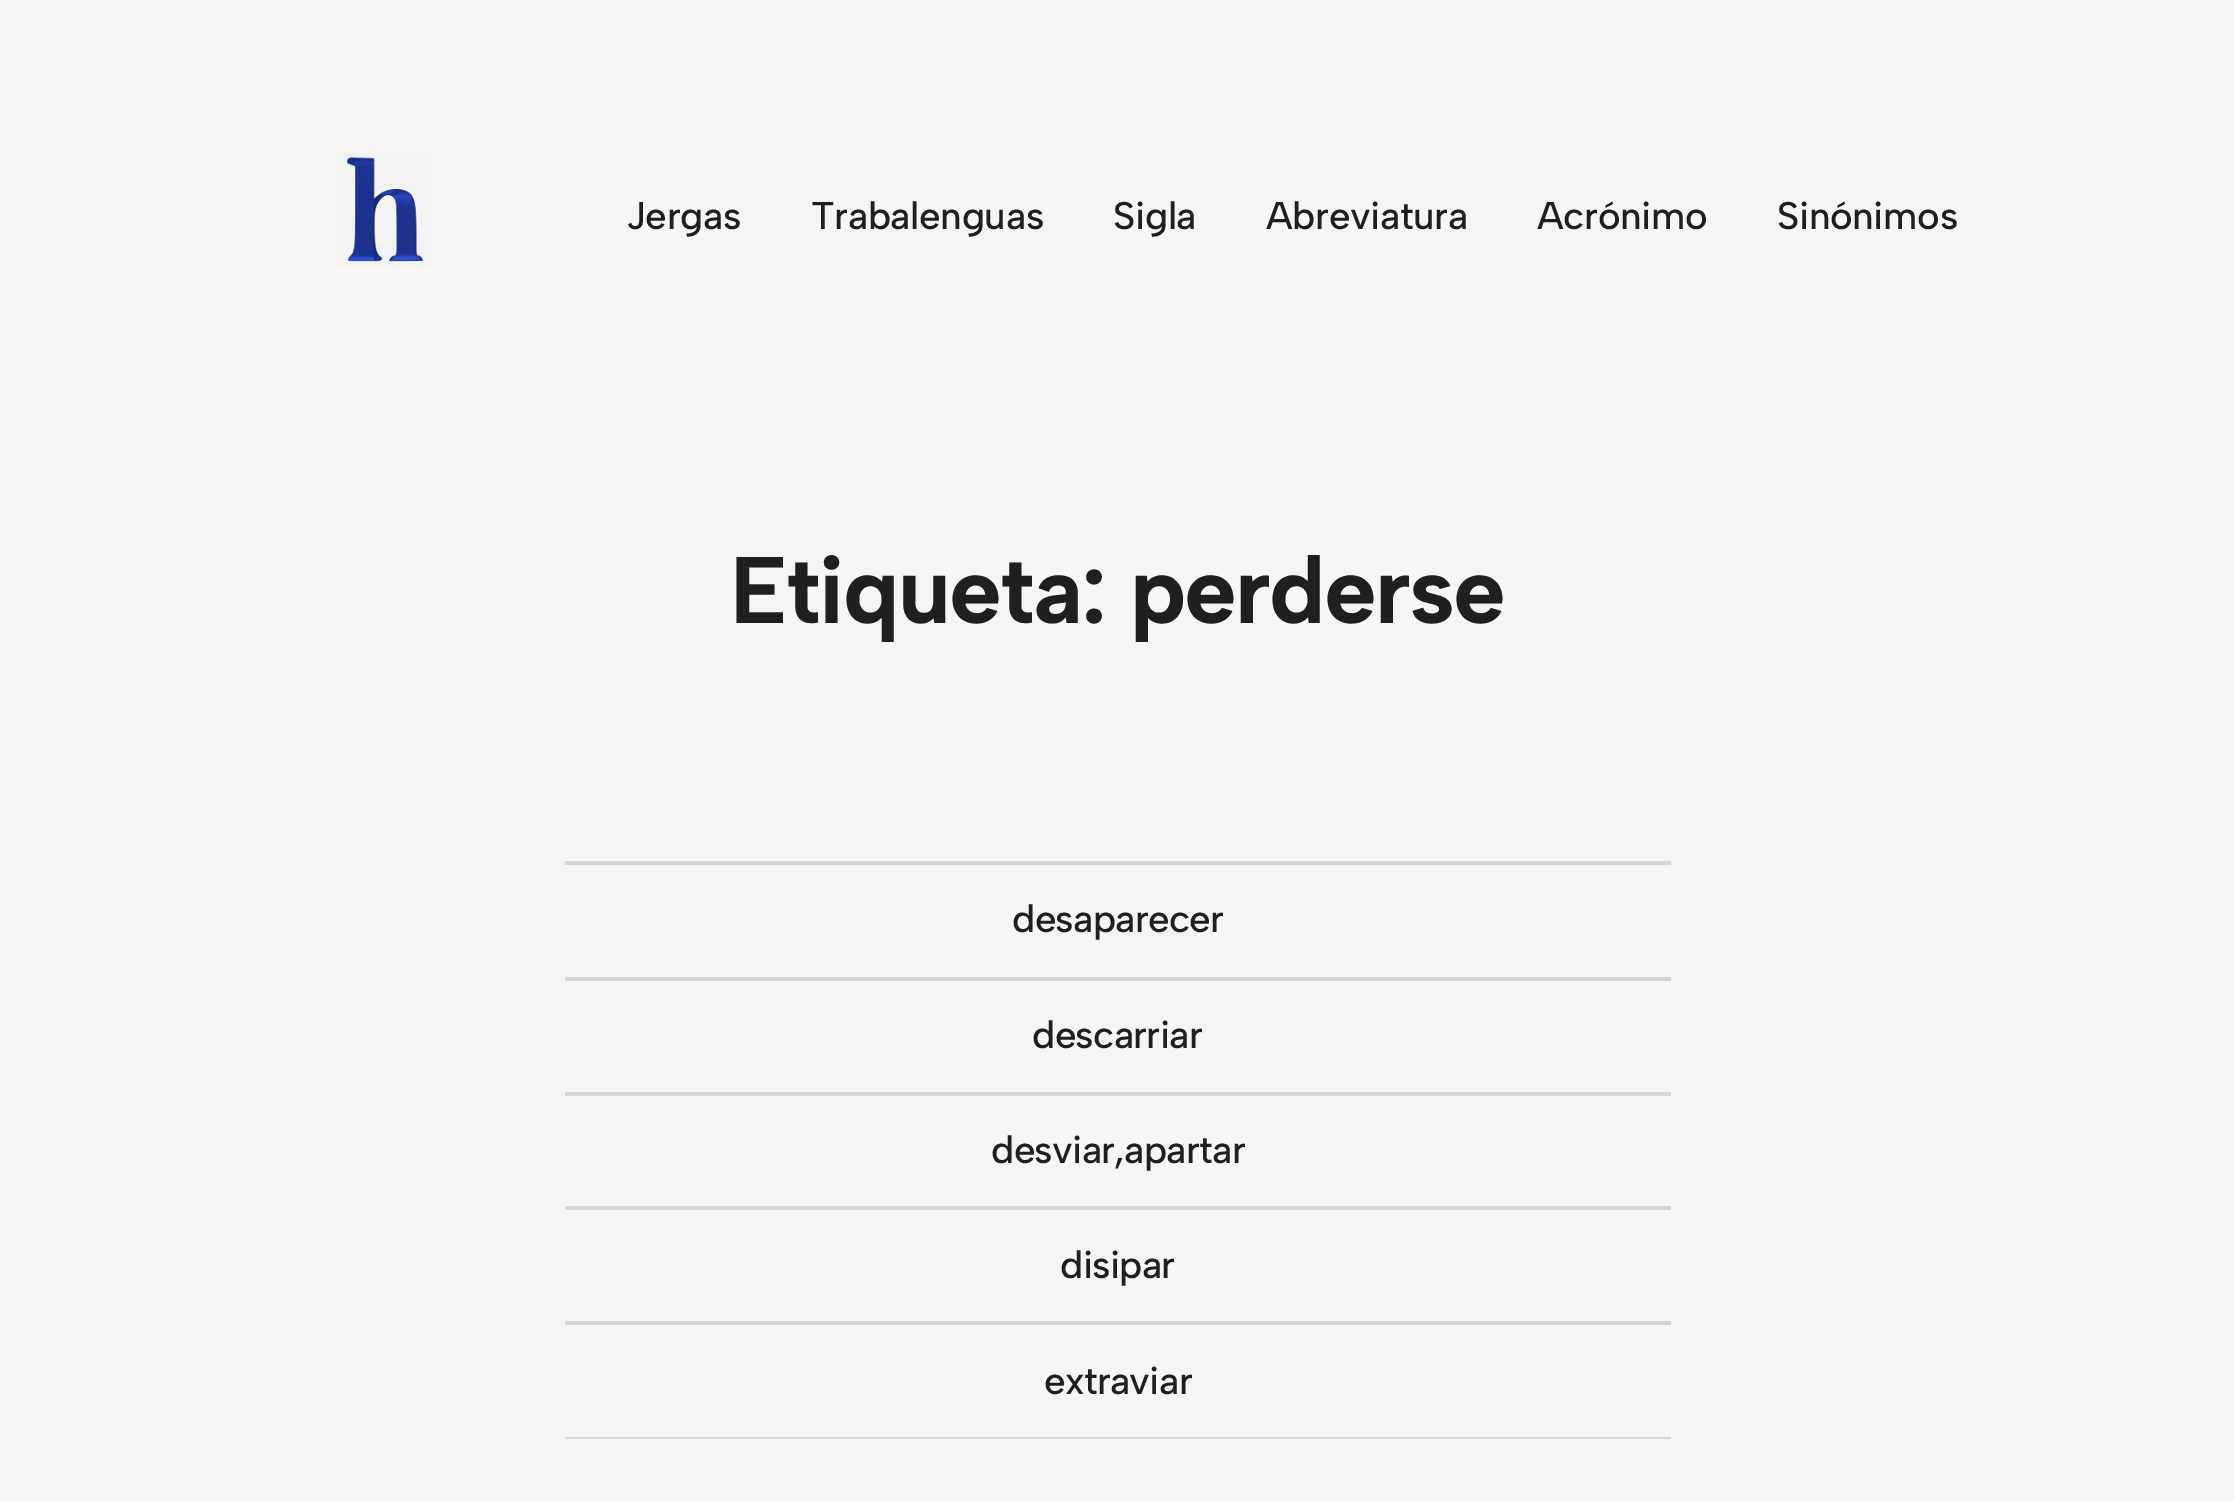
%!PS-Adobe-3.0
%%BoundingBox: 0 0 2234 1501
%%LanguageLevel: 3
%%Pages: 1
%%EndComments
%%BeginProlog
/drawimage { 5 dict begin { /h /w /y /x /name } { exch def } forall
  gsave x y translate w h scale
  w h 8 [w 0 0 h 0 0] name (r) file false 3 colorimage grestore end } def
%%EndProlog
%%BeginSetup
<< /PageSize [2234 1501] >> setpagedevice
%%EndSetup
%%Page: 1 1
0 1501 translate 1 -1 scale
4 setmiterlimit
0.969 0.961 0.953 setrgbcolor
0 0 2234 1501 rectfill
(images/1.raw) 334 153 99 114 drawimage
0.839 0.835 0.827 setrgbcolor
565 1437 1106 2 rectfill
565 861 1106 4 rectfill
565 977 1106 4 rectfill
565 1092 1106 4 rectfill
565 1206 1106 4 rectfill
565 1321 1106 4 rectfill
/AlbertSans-Medium [38.5 0 0 -38.5 0 0] selectfont
0.114 0.125 0.122 setrgbcolor
626 229 moveto -0.4 0 (Jergas) ashow
811 229 moveto -0.4 0 (Trabalenguas) ashow
1113 229 moveto -0.4 0 (Sigla) ashow
1266 229 moveto -0.4 0 (Abreviatura) ashow
1537 229 moveto -0.4 0 (Acrónimo) ashow
1777 229 moveto -0.4 0 (Sinónimos) ashow
/AlbertSans-Bold [94.5 0 0 -94.5 0 0] selectfont
730 623 moveto -1.9 0 (Etiqueta: perderse) ashow
/AlbertSans-Medium [38.5 0 0 -38.5 0 0] selectfont
1012 932 moveto -0.75 0 (desaparecer) ashow
1032 1048 moveto -0.75 0 (descarriar) ashow
991 1163 moveto -0.75 0 (desviar,apartar) ashow
1060 1278 moveto -0.75 0 (disipar) ashow
1044 1394 moveto -0.75 0 (extraviar) ashow
showpage
%%EOF
